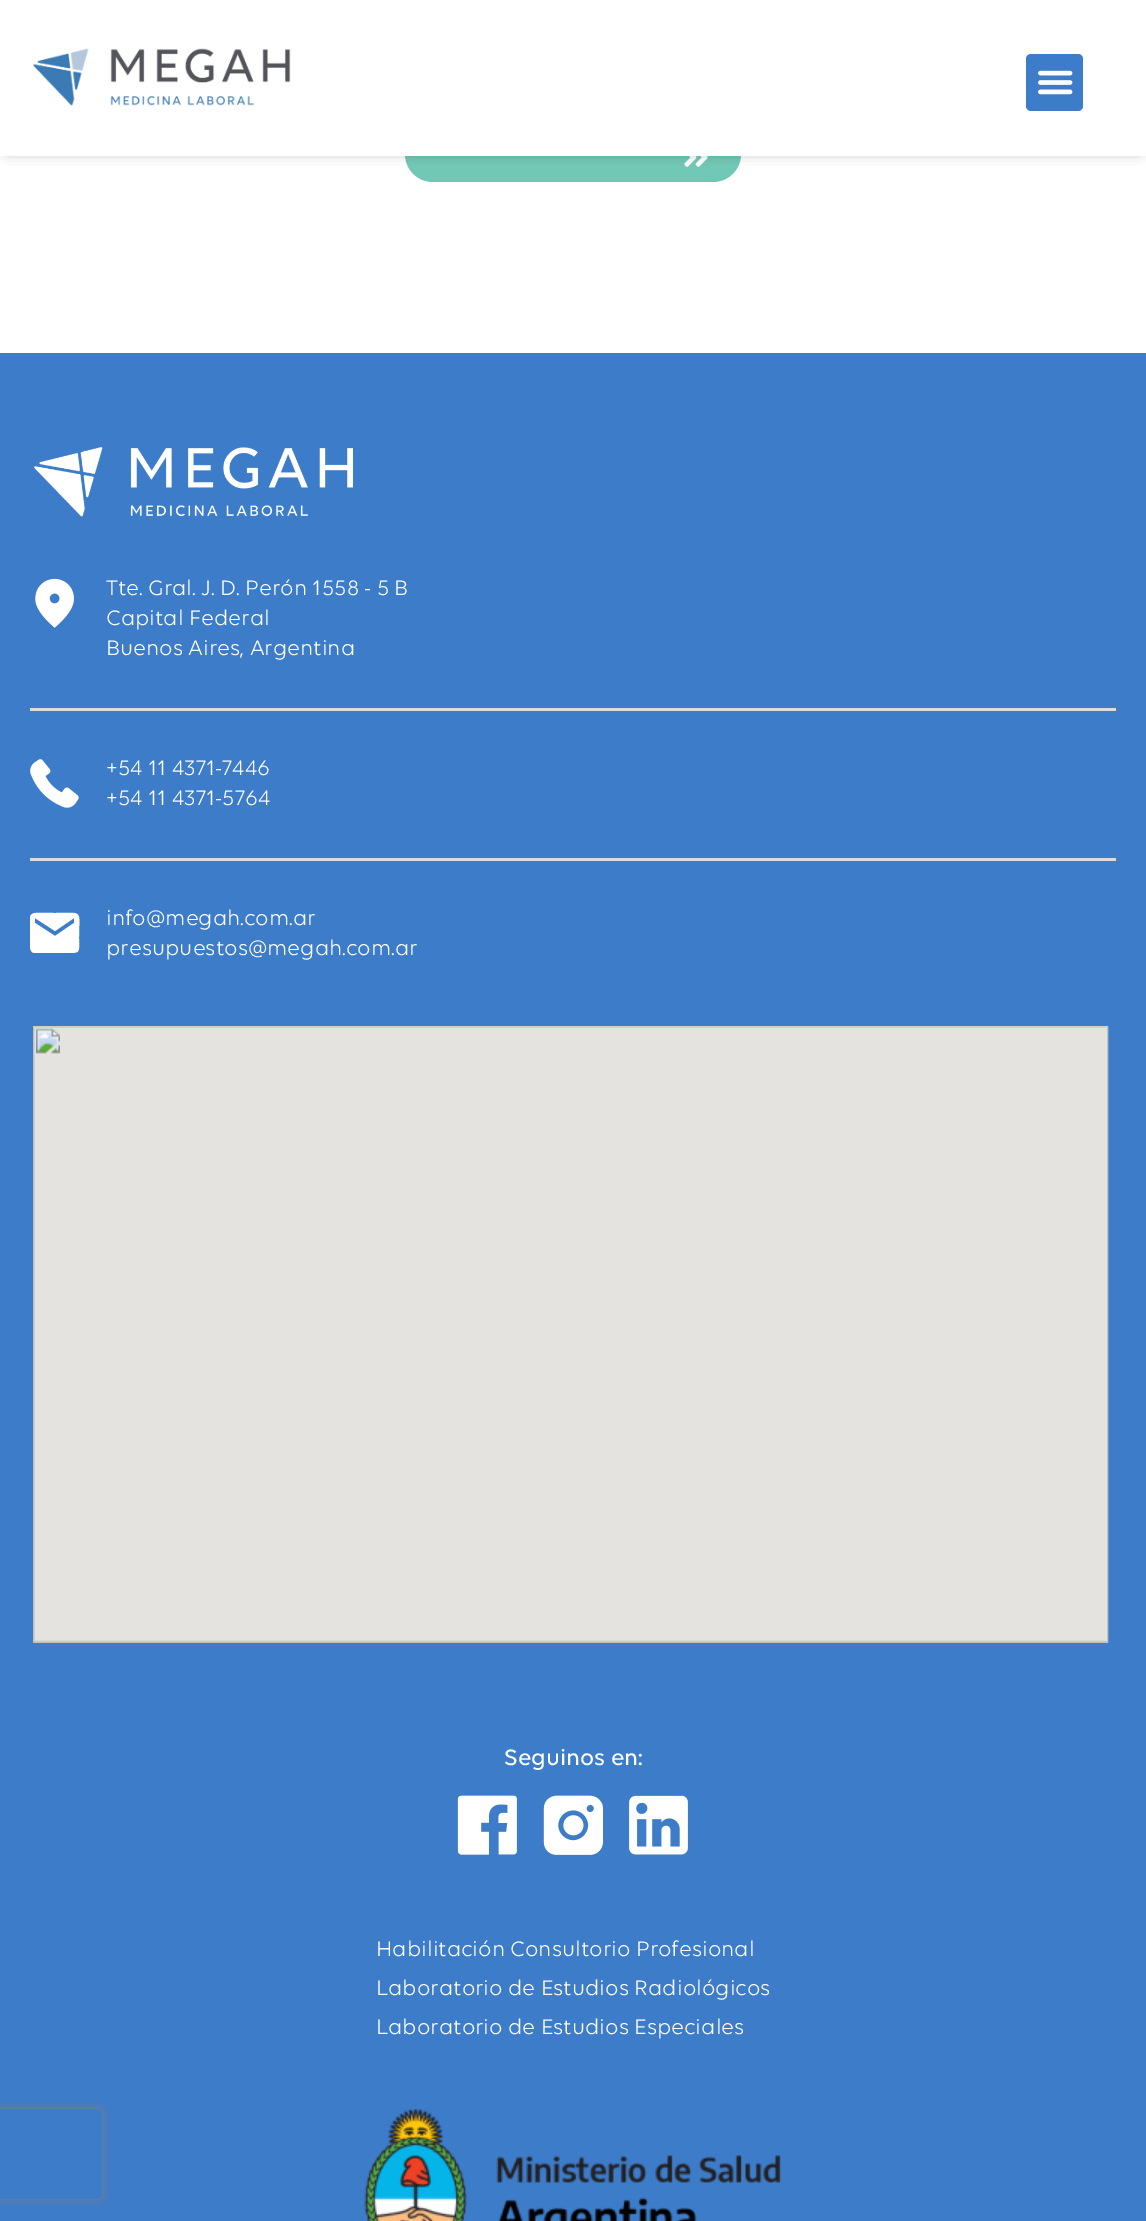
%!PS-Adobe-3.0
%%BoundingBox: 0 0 1146 2221
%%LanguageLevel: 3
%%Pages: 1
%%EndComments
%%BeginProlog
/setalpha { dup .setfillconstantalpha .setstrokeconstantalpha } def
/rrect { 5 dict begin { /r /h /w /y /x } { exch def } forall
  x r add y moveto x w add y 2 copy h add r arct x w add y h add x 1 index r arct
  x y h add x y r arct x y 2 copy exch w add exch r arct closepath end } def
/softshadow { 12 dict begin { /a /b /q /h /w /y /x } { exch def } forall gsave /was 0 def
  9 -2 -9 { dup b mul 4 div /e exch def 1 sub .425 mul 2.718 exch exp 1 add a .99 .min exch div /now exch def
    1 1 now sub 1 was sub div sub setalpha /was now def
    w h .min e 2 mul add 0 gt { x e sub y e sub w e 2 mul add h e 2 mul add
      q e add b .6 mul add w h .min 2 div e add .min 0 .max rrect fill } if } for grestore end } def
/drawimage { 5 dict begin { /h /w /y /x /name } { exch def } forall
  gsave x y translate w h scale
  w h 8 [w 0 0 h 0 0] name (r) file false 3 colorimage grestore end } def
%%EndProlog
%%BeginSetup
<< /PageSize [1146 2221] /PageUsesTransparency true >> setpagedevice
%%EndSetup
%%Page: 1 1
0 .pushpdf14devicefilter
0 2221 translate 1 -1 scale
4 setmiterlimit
1 setgray
0 0 1146 2221 rectfill
0.447 0.784 0.714 setrgbcolor
405 126 336 56 28 rrect fill
(images/3.raw) 684 156 24 11 drawimage
0 setgray
8 8 1131 141 0 7.5 0.5 softshadow
1 setgray
0 0 1146 156 rectfill
(images/1.raw) 33 48 258 58 drawimage
0.239 0.486 0.788 setrgbcolor
1026 54 57 57 5 rrect fill
(images/2.raw) 1038 70 35 25 drawimage
0 353 1146 1868 rectfill
(images/4.raw) 34 447 319 70 drawimage
(images/5.raw) 35 578 39 50 drawimage
0.867 setgray
30 708 1086 3 rectfill
(images/6.raw) 30 759 49 49 drawimage
30 858 1086 3 rectfill
gsave
30 908 51 51 rectclip
1 setgray
newpath 35 953 moveto 28 953 30 942 30 938 curveto 30 909 25 913 55 913 curveto 84 913 79 909 79 938 curveto 79 952 81 953 68 953 curveto closepath 55 936 moveto 74 923 lineto 74 918 lineto 55 931 lineto 35 918 lineto 35 923 lineto closepath fill
grestore
(images/7.raw) 33 1026 1076 617 drawimage
(images/8.raw) 457 1795 60 60 drawimage
(images/9.raw) 543 1795 61 60 drawimage
(images/10.raw) 629 1795 59 60 drawimage
(images/11.raw) 364 2109 417 112 drawimage
gsave
newpath 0 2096 moveto 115 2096 lineto 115 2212 lineto 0 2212 lineto closepath 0 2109 moveto 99 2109 lineto 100.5 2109 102 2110.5 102 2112 curveto 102 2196 lineto 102 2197.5 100.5 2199 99 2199 curveto 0 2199 lineto -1.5 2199 -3 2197.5 -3 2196 curveto -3 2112 lineto -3 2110.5 -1.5 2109 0 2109 curveto closepath eoclip newpath
0.502 setgray
-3 2109 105 90 3 4 1 softshadow
grestore
/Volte-Regular [22.5 0 0 -22.5 0 0] selectfont
1 setgray
106 595 moveto (Tte. Gral. J. D. Perón 1558 - 5 B) show
106 625 moveto (Capital Federal) show
106 655 moveto (Buenos Aires, Argentina) show
106 775 moveto (+54 11 4371-7446) show
106 805 moveto (+54 11 4371-5764) show
106 925 moveto (info@megah.com.ar) show
106 955 moveto (presupuestos@megah.com.ar) show
/Volte-Medium [24 0 0 -24 0 0] selectfont
504 1765 moveto (Seguinos en:) show
/Volte-Regular [22.5 0 0 -22.5 0 0] selectfont
376 1956 moveto (Habilitación Consultorio Profesional) show
376 1995 moveto (Laboratorio de Estudios Radiológicos) show
376 2034 moveto (Laboratorio de Estudios Especiales) show
.poppdf14devicefilter showpage
%%EOF
